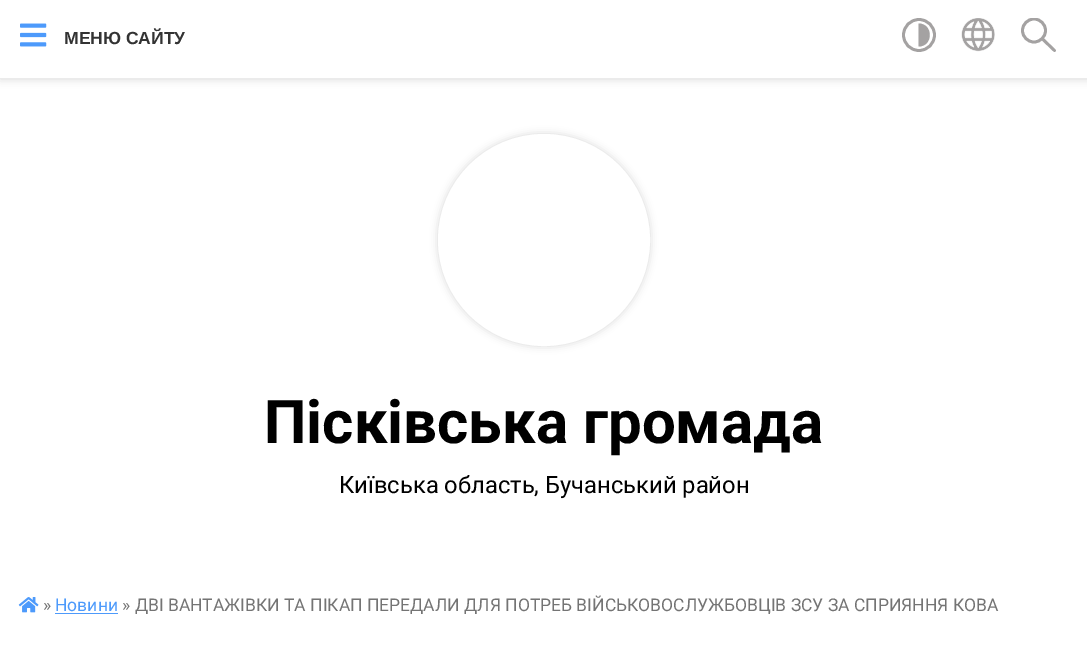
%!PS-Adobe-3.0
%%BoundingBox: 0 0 1087 651
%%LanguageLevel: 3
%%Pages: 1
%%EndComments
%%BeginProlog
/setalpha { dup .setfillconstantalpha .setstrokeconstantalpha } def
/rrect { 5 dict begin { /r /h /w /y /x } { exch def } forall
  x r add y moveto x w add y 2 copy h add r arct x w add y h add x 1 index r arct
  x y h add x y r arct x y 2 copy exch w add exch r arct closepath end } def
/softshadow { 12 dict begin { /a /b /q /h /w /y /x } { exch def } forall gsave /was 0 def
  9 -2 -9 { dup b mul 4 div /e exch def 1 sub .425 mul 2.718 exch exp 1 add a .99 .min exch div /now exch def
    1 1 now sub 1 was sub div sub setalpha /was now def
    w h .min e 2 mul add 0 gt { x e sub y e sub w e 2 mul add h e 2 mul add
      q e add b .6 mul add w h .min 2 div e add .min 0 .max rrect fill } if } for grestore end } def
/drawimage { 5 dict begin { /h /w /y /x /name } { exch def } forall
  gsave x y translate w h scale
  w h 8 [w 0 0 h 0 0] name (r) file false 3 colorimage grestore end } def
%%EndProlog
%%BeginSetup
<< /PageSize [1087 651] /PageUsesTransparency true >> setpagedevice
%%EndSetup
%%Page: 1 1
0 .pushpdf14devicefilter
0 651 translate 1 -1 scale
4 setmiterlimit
1 setgray
0 0 1087 651 rectfill
0 setgray
0 1 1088 78 0 4.5 0.15 softshadow
1 setgray
0 0 1087 78 rectfill
(images/1.raw) 20 23 27 24 drawimage
0.643 0.635 0.635 setrgbcolor
2.8 setlinewidth
newpath 919 35 15.5 0 360 arc closepath stroke
newpath 918.5 23.5 moveto 933.5 23.5 933.5 46.5 918.5 46.5 curveto closepath eofill
(images/2.raw) 961 18 34 34 drawimage
gsave
1021 18 35 35 rectclip
newpath 1034 30.5 11.5 0 360 arc closepath stroke
grestore
1 setlinecap
1 setlinejoin
newpath 1042.5 39 moveto 1054.5 50.5 lineto stroke
0 setgray
438 134 212 212 106 4 0.15 softshadow
1 setgray
newpath 544 240 104.5 0 360 arc closepath gsave fill grestore
3 setlinewidth
0 setlinecap
0 setlinejoin
stroke
(images/3.raw) 18 597 21 16 drawimage
0.302 0.604 0.984 setrgbcolor
55 613 63 1 rectfill
/LiberationSans-Bold [17.5 0 0 -17.5 0 0] selectfont
0.2 setgray
64 44 moveto (МЕНЮ САЙТУ) show
/Roboto-Bold [60 0 0 -60 0 0] selectfont
0 setgray
264 443 moveto (Пісківська громада) show
/Roboto-Regular [23.75 0 0 -23.75 0 0] selectfont
339 493 moveto (Київська область, Бучанський район) show
/Roboto-Regular [17.5 0 0 -17.5 0 0] selectfont
0.455 setgray
43 611 moveto (») show
0.302 0.604 0.984 setrgbcolor
55 611 moveto (Новини) show
0.455 setgray
122 611 moveto (» ДВІ ВАНТАЖІВКИ ТА ПІКАП ПЕРЕДАЛИ ДЛЯ ПОТРЕБ ВІЙСЬКОВОСЛУЖБОВЦІВ ЗСУ ЗА СПРИЯННЯ КОВА) show
.poppdf14devicefilter showpage
%%EOF
